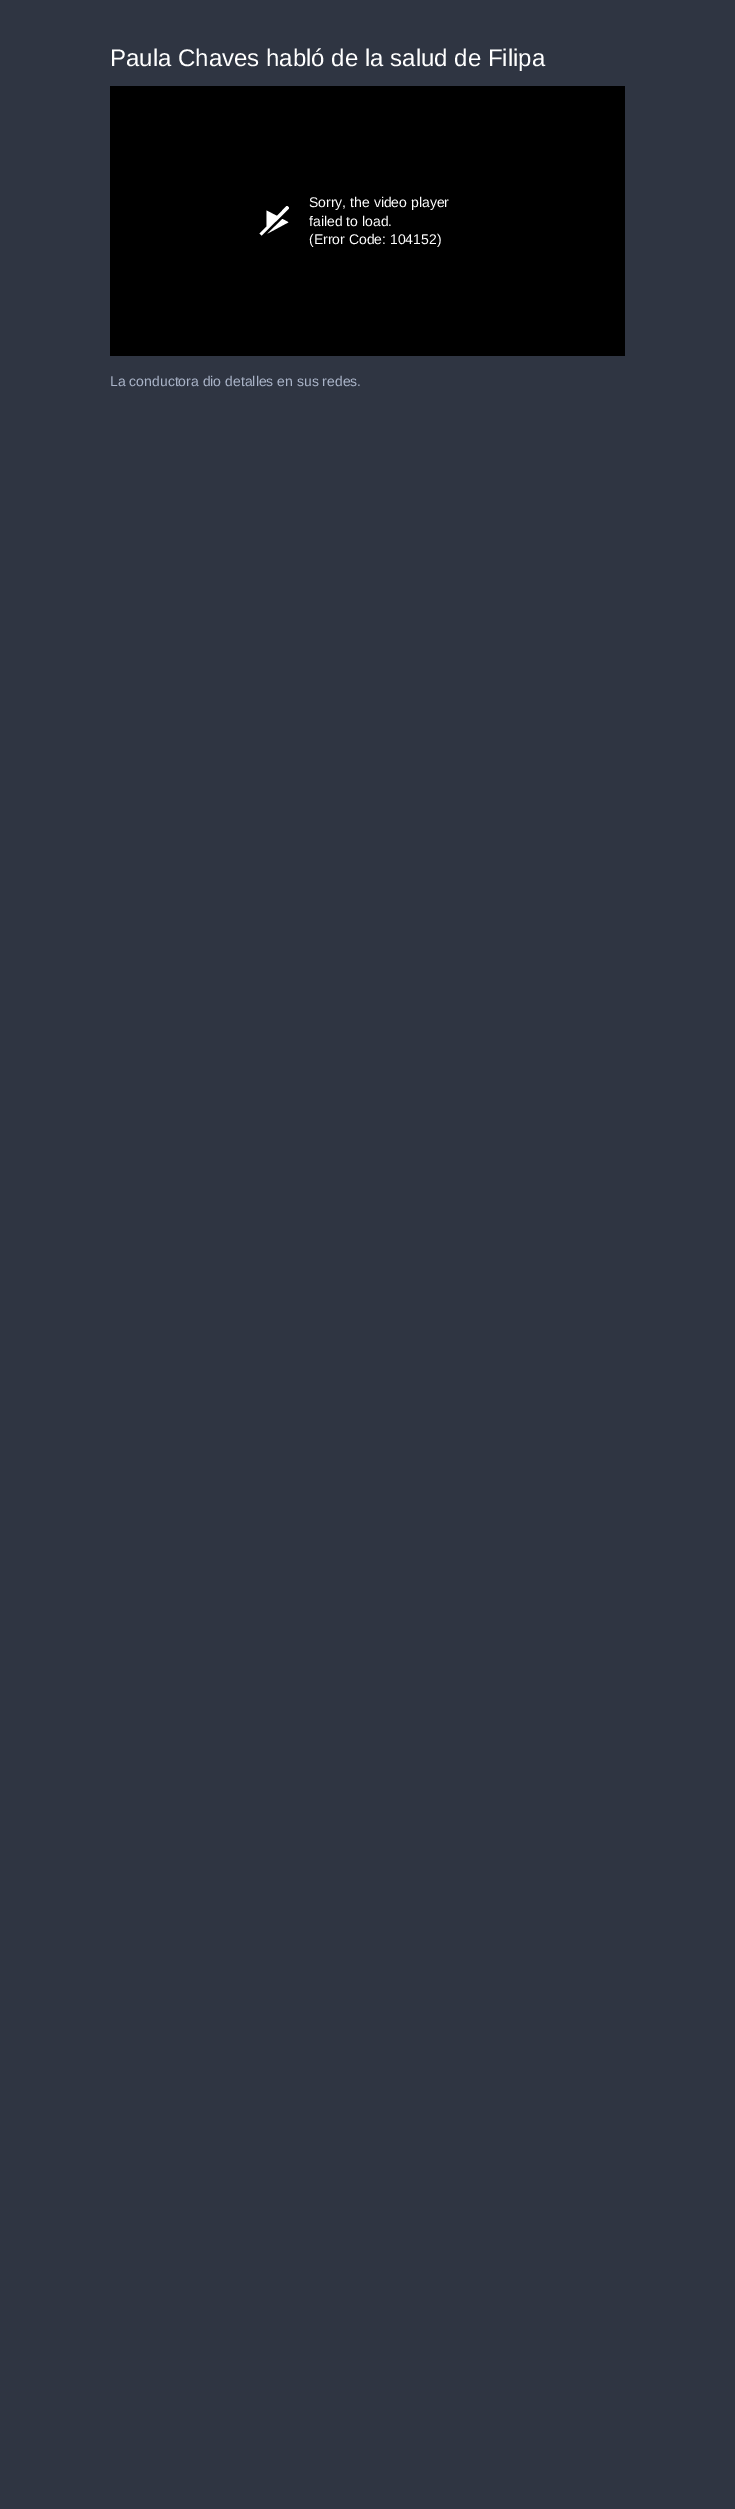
%!PS-Adobe-3.0
%%BoundingBox: 0 0 735 2509
%%LanguageLevel: 3
%%Pages: 1
%%EndComments
%%BeginProlog
%%EndProlog
%%BeginSetup
<< /PageSize [735 2509] >> setpagedevice
%%EndSetup
%%Page: 1 1
0 2509 translate 1 -1 scale
4 setmiterlimit
0.184 0.208 0.259 setrgbcolor
0 0 735 2509 rectfill
0 setgray
110 86 515 270 rectfill
gsave
259 206 30 30 rectclip
1 setgray
newpath 288 222.5 moveto 267.5 233.5 lineto 282.5 219 lineto 288 222 289 222.5 288 222.5 curveto closepath 287 205.5 moveto 277 216 lineto 266.5 210.5 lineto 266.5 226.5 lineto 259.5 233.5 lineto 261.5 235.5 lineto 289.5 208 lineto closepath fill
grestore
/LiberationSans-Regular [24 0 0 -24 0 0] selectfont
1 setgray
110 66 moveto (Paula Chaves habló de la salud de Filipa) show
/LiberationSans-Regular [14 0 0 -14 0 0] selectfont
309 207 moveto (Sorry, the video player) show
309 226 moveto (failed to load.) show
309 244 moveto (\(Error Code: 104152\)) show
0.667 0.706 0.784 setrgbcolor
110 386 moveto (La conductora dio detalles en sus redes.) show
showpage
%%EOF
